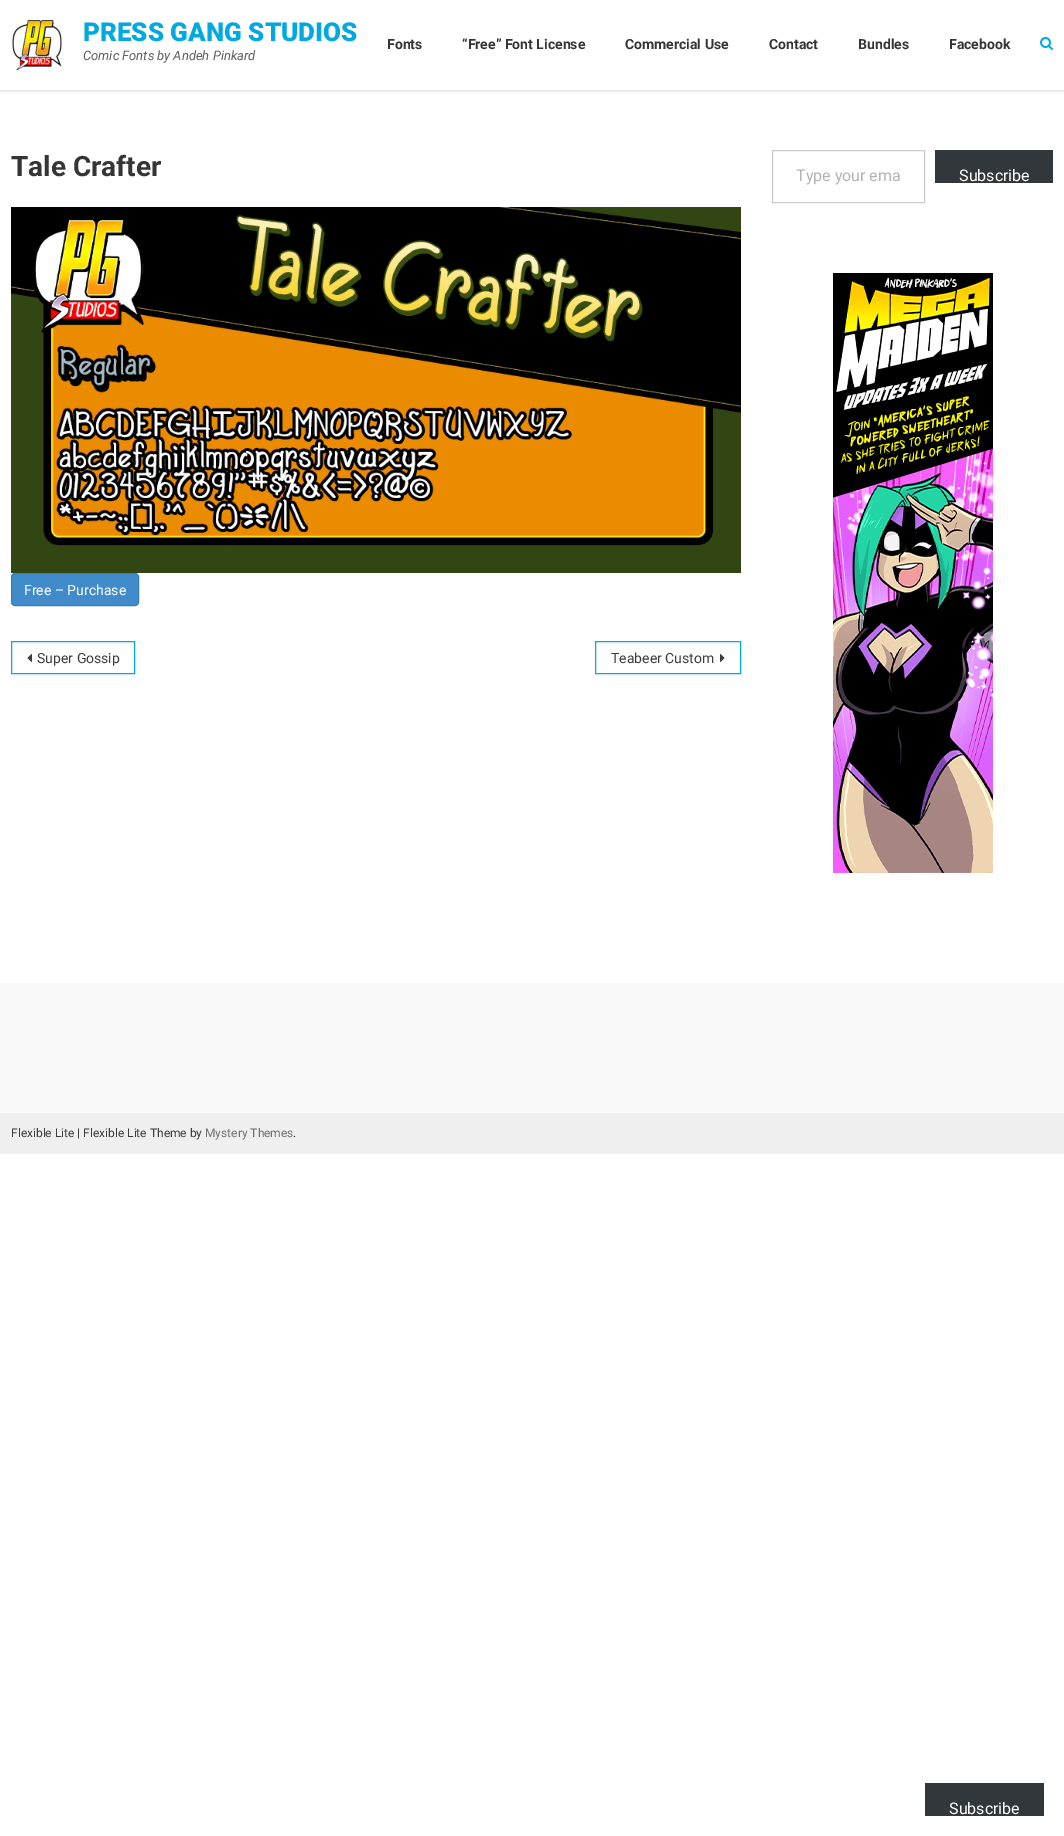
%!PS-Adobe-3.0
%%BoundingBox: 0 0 1064 1836
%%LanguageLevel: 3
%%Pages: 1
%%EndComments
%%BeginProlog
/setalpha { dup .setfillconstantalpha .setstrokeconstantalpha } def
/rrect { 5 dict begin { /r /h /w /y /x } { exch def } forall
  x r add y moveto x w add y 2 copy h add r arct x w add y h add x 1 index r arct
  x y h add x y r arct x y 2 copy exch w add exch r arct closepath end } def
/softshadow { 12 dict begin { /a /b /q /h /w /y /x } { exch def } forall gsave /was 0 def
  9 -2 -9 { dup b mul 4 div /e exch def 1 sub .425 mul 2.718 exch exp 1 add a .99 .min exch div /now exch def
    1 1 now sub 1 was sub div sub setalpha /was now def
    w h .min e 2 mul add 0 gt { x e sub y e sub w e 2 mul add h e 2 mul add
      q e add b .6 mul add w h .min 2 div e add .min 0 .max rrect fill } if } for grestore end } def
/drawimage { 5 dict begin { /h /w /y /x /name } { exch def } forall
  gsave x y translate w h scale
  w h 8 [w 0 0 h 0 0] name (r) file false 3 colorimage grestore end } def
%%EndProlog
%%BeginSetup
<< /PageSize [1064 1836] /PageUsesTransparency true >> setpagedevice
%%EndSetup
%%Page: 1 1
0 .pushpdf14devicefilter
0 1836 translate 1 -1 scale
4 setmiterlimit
1 setgray
0 0 1064 1836 rectfill
gsave
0 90 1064 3 rectclip
0 setgray
0 0 1064 90 0 2.5 0.2 softshadow
grestore
(images/1.raw) 12 20 50 50 drawimage
(images/2.raw) 1040 37 13 13 drawimage
(images/3.raw) 11 207 730 366 drawimage
0.259 0.545 0.792 setrgbcolor
11.5 573.5 127 32 3.5 rrect gsave fill grestore
0.208 0.494 0.741 setrgbcolor
stroke
0 0.663 0.878 setrgbcolor
11.5 641.5 123 32 rectstroke
(images/4.raw) 27 654 5 8 drawimage
595.5 641.5 145 32 rectstroke
(images/5.raw) 720 654 5 8 drawimage
0.8 setgray
772.5 150.5 152 52 rectstroke
0.196 0.216 0.235 setrgbcolor
935 150 118 33 rectfill
(images/6.raw) 833 273 160 600 drawimage
0.976 setgray
0 983 1064 130 rectfill
0.937 setgray
0 1113 1064 41 rectfill
0.196 0.216 0.235 setrgbcolor
925 1783 119 33 rectfill
/Roboto-Black [26 0 0 -26 0 0] selectfont
0 0.663 0.878 setrgbcolor
83 41 moveto (PRESS GANG STUDIOS) show
/Roboto-Italic [13 0 0 -13 0 0] selectfont
0.361 0.369 0.373 setrgbcolor
83 60 moveto (Comic Fonts by Andeh Pinkard) show
/Roboto-Bold [14 0 0 -14 0 0] selectfont
0.208 setgray
387 49 moveto (Fonts) show
462 49 moveto (“Free” Font License) show
625 49 moveto (Commercial Use) show
769 49 moveto (Contact) show
858 49 moveto (Bundles) show
949 49 moveto (Facebook) show
/Roboto-Bold [28 0 0 -28 0 0] selectfont
11 176 moveto (Tale Crafter) show
/Roboto-Regular [14 0 0 -14 0 0] selectfont
1 setgray
24 595 moveto (Free – Purchase) show
0.239 setgray
37 663 moveto (Super Gossip) show
611 663 moveto (Teabeer Custom) show
/Roboto-Regular [16 0 0 -16 0 0] selectfont
0.702 setgray
796 181 moveto (Type your ema) show
1 setgray
959 181 moveto (Subscribe) show
/Roboto-Regular [12 0 0 -12 0 0] selectfont
0.239 setgray
11 1137 moveto (Flexible Lite | Flexible Lite Theme by) show
0.439 setgray
205 1137 moveto (Mystery Themes) show
0.239 setgray
293 1137 moveto (.) show
/Roboto-Regular [16 0 0 -16 0 0] selectfont
1 setgray
949 1814 moveto (Subscribe) show
.poppdf14devicefilter showpage
%%EOF
